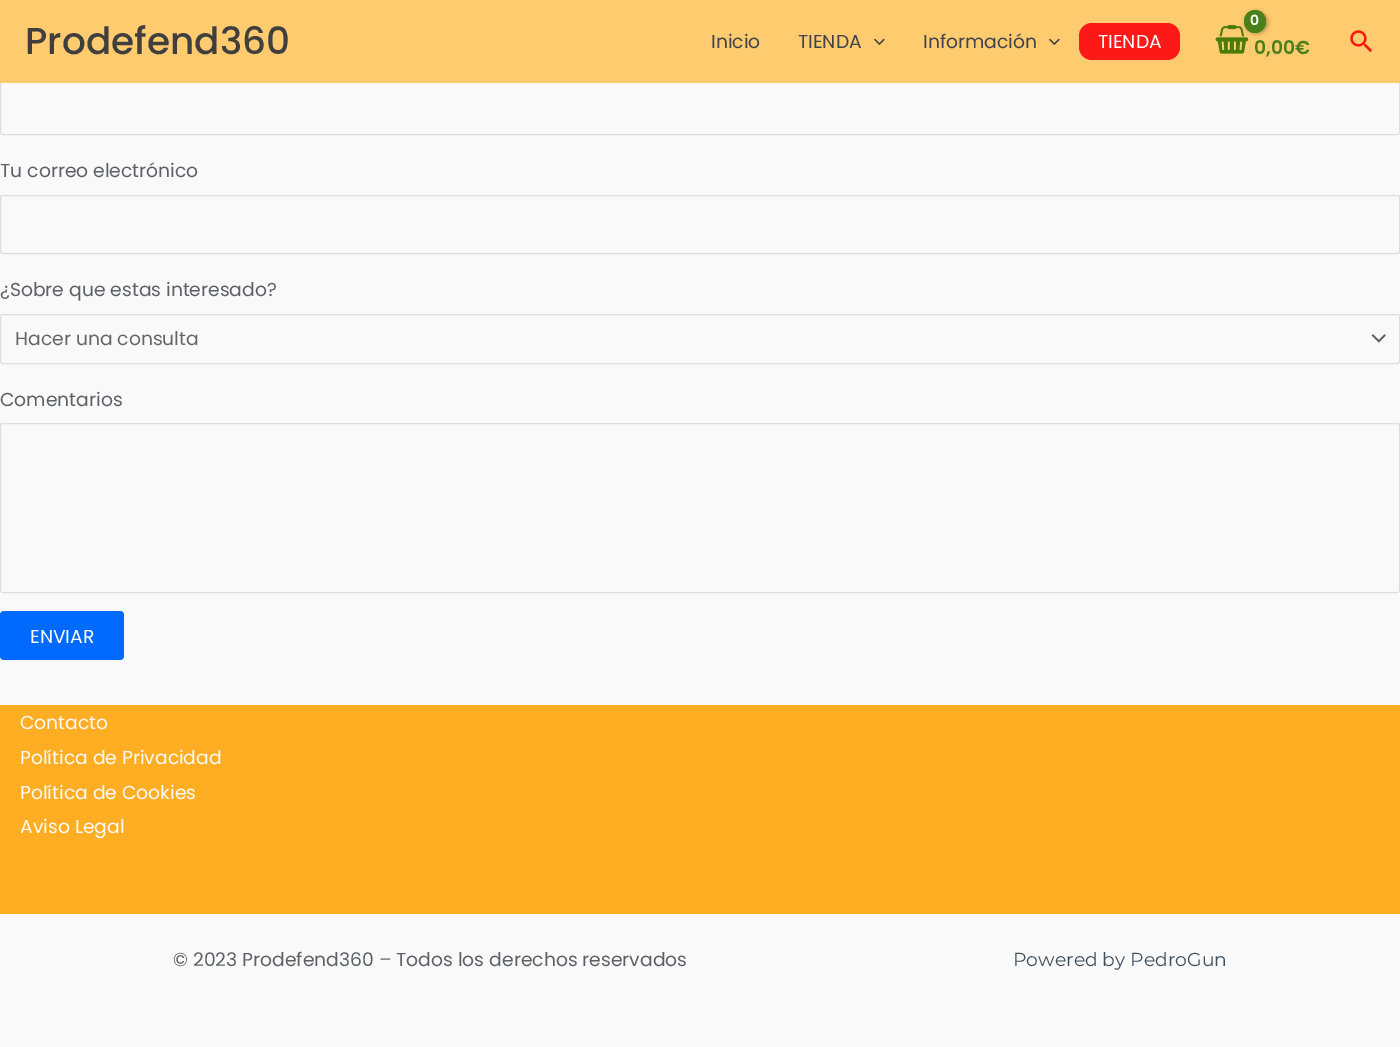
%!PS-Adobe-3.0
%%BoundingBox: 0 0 1400 1047
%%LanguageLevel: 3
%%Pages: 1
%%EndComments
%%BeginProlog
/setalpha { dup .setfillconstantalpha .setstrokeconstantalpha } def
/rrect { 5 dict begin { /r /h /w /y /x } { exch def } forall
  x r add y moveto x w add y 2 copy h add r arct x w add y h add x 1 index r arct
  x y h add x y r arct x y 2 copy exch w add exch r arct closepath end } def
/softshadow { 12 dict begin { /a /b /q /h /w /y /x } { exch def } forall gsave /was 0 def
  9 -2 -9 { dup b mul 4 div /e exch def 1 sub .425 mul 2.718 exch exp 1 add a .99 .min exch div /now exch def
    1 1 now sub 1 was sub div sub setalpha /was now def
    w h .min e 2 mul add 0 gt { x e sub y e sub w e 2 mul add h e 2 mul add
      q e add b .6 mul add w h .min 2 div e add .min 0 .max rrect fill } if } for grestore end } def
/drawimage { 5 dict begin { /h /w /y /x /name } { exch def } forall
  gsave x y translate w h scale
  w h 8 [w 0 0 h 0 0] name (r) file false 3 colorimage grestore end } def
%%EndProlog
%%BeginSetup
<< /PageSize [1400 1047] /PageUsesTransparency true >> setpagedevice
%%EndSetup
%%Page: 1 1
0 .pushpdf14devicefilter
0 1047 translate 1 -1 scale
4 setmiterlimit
0.976 setgray
0 0 1400 1047 rectfill
0.867 setgray
0.5 75.5 1399 59 2 rrect stroke
0.9 setalpha
1 setgray
0 0 1400 83 rectfill
1 0.773 0.376 setrgbcolor
0 0 1400 83 rectfill
1 setalpha
(images/1.raw) 874 38 11 7 drawimage
(images/1.raw) 1049 38 11 7 drawimage
0.996 0.098 0.098 setrgbcolor
1079 23 101 37 13 rrect fill
(images/2.raw) 1215 25 34 29 drawimage
0.098 setgray
1245 11 23 23 11.5 2 0.3 softshadow
0.29 0.502 0.098 setrgbcolor
1244 10 22 23 11 rrect fill
(images/3.raw) 1350 30 23 23 drawimage
0.867 setgray
0.5 195.5 1399 58 2 rrect stroke
(images/4.raw) 1371 334 15 9 drawimage
0.5 314.5 1399 49 2 rrect stroke
0.5 423.5 1399 169 2 rrect stroke
0 0.416 0.996 setrgbcolor
0 611 124 49 4 rrect fill
1 0.682 0.137 setrgbcolor
0 705 1400 209 rectfill
/Poppins-Medium [37.5 0 0 -37.5 0 0] selectfont
0.251 0.247 0.243 setrgbcolor
25 54 moveto (Prodefend360) show
/Poppins-Regular [18.75 0 0 -18.75 0 0] selectfont
0.251 0.263 0.294 setrgbcolor
711 48 moveto (Inicio) show
798 48 moveto (TIENDA) show
923 48 moveto (Información) show
1 setgray
1098 48 moveto (TIENDA) show
/Poppins-SemiBold [14 0 0 -14 0 0] selectfont
1250 25 moveto -1 0 (0) ashow
/Poppins-SemiBold [18.75 0 0 -18.75 0 0] selectfont
0.29 0.502 0.098 setrgbcolor
1254 54 moveto (0,00€) show
/Poppins-Regular [18.75 0 0 -18.75 0 0] selectfont
0.365 0.38 0.404 setrgbcolor
0 177 moveto (Tu correo electrónico) show
0 296 moveto (¿Sobre que estas interesado?) show
0.4 setgray
15 345 moveto (Hacer una consulta) show
0.365 0.38 0.404 setrgbcolor
0 406 moveto (Comentarios) show
1 setgray
30 643 moveto (ENVIAR) show
0.976 setgray
20 729 moveto (Contacto) show
20 764 moveto (Política de Privacidad) show
20 799 moveto (Política de Cookies) show
20 833 moveto (Aviso Legal) show
0.365 0.38 0.404 setrgbcolor
173 966 moveto (© 2023 Prodefend360 – Todos los derechos reservados) show
/Montserrat-Regular [18.75 0 0 -18.75 0 0] selectfont
0.247 0.31 0.361 setrgbcolor
1013 966 moveto (Powered by PedroGun) show
.poppdf14devicefilter showpage
%%EOF
